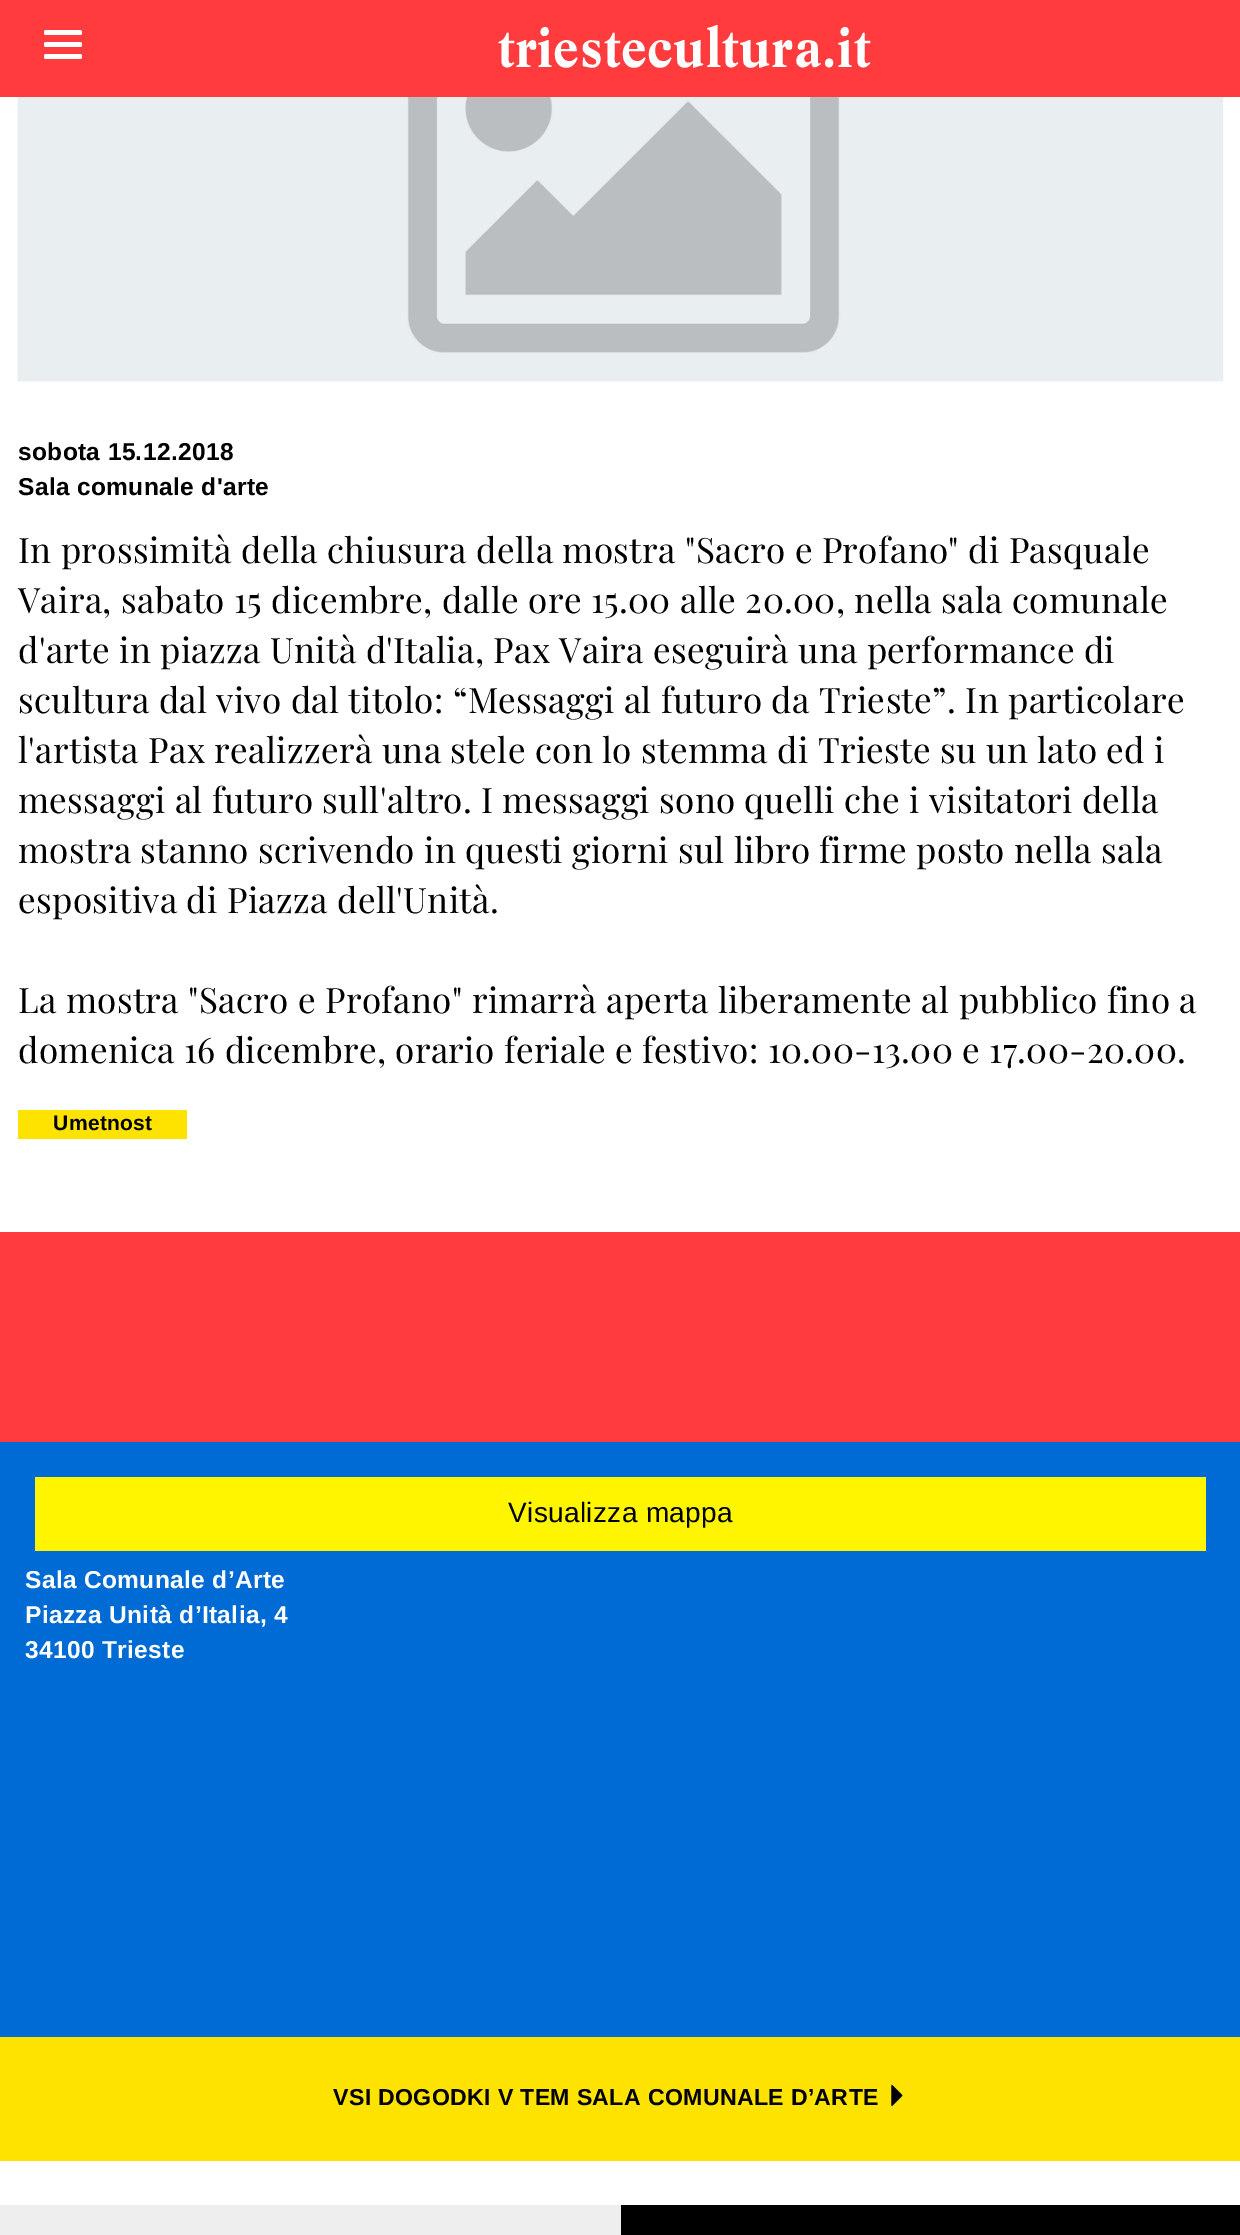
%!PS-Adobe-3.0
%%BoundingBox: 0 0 1240 2235
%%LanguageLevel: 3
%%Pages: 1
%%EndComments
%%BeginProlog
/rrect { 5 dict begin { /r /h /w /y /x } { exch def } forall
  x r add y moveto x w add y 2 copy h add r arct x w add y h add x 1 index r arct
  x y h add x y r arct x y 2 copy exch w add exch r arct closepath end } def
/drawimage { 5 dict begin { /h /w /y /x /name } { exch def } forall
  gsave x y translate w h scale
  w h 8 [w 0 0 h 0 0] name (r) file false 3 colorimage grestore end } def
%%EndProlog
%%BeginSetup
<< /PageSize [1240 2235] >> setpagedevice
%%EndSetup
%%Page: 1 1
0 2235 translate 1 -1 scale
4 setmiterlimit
1 setgray
0 0 1240 2235 rectfill
1 0.231 0.239 setrgbcolor
0 0 1240 97 rectfill
1 setgray
44 30 38 5 2 rrect fill
44 42 38 5 2 rrect fill
44 54 38 5 2 rrect fill
(images/1.raw) 17 97 1207 285 drawimage
1 0.89 0 setrgbcolor
18 1110 169 29 rectfill
1 0.231 0.239 setrgbcolor
0 1232 1240 210 rectfill
0 0.42 0.831 setrgbcolor
0 1442 1240 595 rectfill
1 0.961 0 setrgbcolor
35 1477 1171 74 rectfill
1 0.89 0 setrgbcolor
0 2037 1240 124 rectfill
(images/2.raw) 891 2084 12 22 drawimage
0.933 setgray
0 2205 621 30 rectfill
0 setgray
621 2205 619 30 rectfill
/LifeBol-Regular [59.5 0 0 -59.5 0 0] selectfont
1 setgray
497 67 moveto 0.35 0 (triestecultura.it) ashow
/LiberationSans-Bold [24.5 0 0 -24.5 0 0] selectfont
0 setgray
18 460 moveto 0.35 0 (sobota 15.12.2018) ashow
18 495 moveto 0.35 0 (Sala comunale d'arte) ashow
/PlayfairDisplay-Regular [35 0 0 -35 0 0] selectfont
18 563 moveto 0.35 0 (In prossimità della chiusura della mostra "Sacro e Profano" di Pasquale) ashow
18 613 moveto 0.35 0 (Vaira, sabato 15 dicembre, dalle ore 15.00 alle 20.00, nella sala comunale) ashow
18 663 moveto 0.35 0 (d'arte in piazza Unità d'Italia, Pax Vaira eseguirà una performance di) ashow
18 713 moveto 0.35 0 (scultura dal vivo dal titolo: “Messaggi al futuro da Trieste”. In particolare) ashow
18 763 moveto 0.35 0 (l'artista Pax realizzerà una stele con lo stemma di Trieste su un lato ed i) ashow
18 813 moveto 0.35 0 (messaggi al futuro sull'altro. I messaggi sono quelli che i visitatori della) ashow
18 863 moveto 0.35 0 (mostra stanno scrivendo in questi giorni sul libro firme posto nella sala) ashow
18 913 moveto 0.35 0 (espositiva di Piazza dell'Unità.) ashow
18 1013 moveto 0.35 0 (La mostra "Sacro e Profano" rimarrà aperta liberamente al pubblico fino a) ashow
18 1063 moveto 0.35 0 (domenica 16 dicembre, orario feriale e festivo: 10.00-13.00 e 17.00-20.00.) ashow
/LiberationSans-Bold [21 0 0 -21 0 0] selectfont
53 1130 moveto 0.35 0 (Umetnost) ashow
/LiberationSans-Regular [28 0 0 -28 0 0] selectfont
508 1522 moveto 0.35 0 (Visualizza mappa) ashow
/LiberationSans-Bold [24.5 0 0 -24.5 0 0] selectfont
1 setgray
25 1588 moveto 0.35 0 (Sala Comunale d’Arte) ashow
25 1623 moveto 0.35 0 (Piazza Unità d’Italia, 4) ashow
25 1658 moveto 0.35 0 (34100 Trieste) ashow
/LiberationSans-Bold [23.1 0 0 -23.1 0 0] selectfont
0 setgray
333 2105 moveto 0.35 0 (VSI DOGODKI V TEM SALA COMUNALE D’ARTE) ashow
showpage
%%EOF
